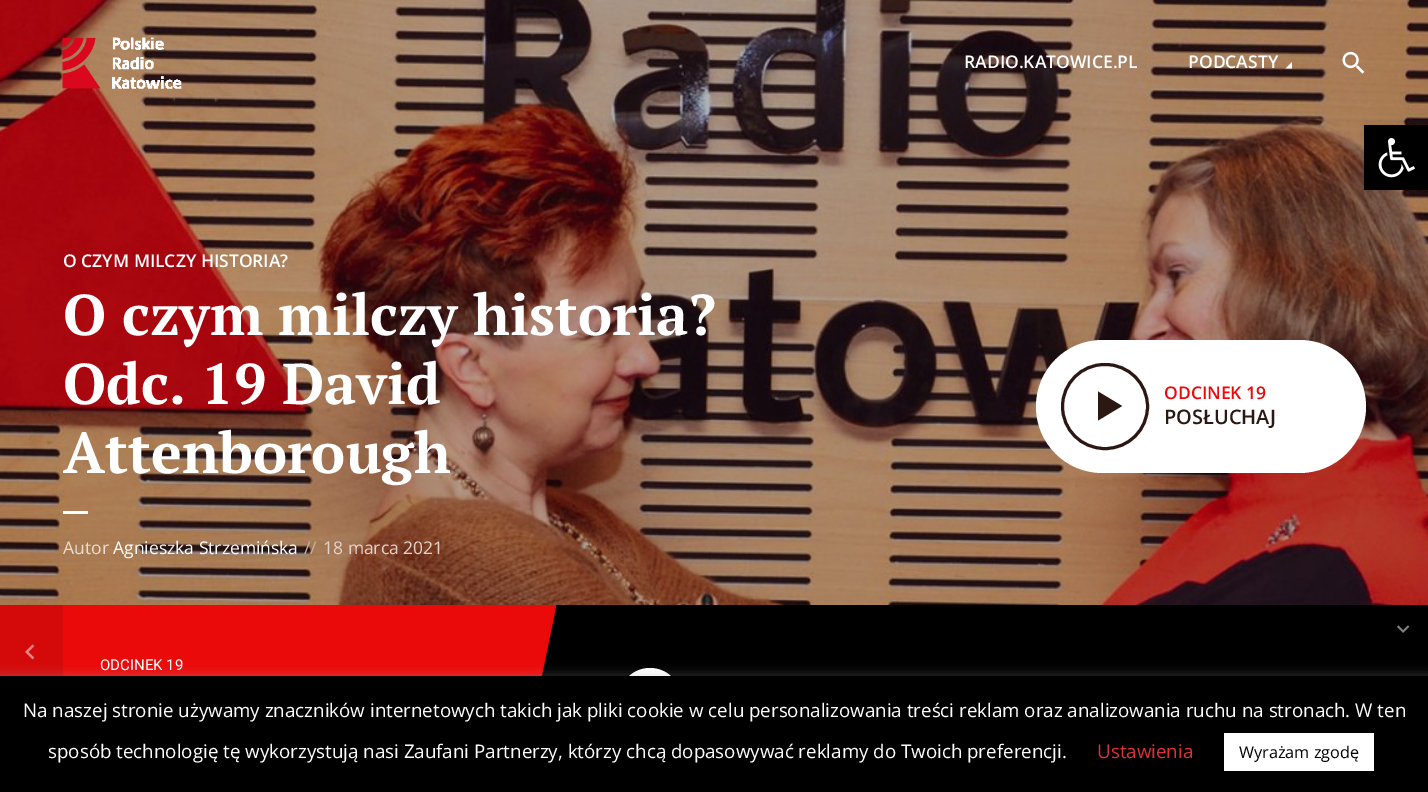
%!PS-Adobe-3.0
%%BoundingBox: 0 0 1428 792
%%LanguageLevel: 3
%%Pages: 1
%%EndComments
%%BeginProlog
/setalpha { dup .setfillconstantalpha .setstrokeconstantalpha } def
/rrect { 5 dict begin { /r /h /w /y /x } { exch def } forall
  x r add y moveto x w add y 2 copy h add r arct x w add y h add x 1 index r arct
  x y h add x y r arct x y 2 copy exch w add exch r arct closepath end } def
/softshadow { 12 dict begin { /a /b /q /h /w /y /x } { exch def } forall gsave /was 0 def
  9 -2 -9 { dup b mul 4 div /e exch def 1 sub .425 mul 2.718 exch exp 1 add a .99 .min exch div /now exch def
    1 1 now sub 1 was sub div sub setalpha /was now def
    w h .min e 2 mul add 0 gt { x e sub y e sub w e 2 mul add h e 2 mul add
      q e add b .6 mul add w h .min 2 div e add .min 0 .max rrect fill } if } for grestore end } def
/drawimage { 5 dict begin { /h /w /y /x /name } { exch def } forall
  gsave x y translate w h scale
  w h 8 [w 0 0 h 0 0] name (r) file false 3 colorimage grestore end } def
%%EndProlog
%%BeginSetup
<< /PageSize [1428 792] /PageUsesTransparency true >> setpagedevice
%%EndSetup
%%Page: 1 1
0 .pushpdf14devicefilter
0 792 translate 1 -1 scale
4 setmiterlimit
1 setgray
0 0 1428 792 rectfill
(images/3.raw) 0 0 1428 605 drawimage
(images/1.raw) 62 37 120 52 drawimage
newpath 1292 62 moveto 1292 68.5 lineto 1285.5 68.5 lineto closepath fill
(images/2.raw) 1342 51 23 23 drawimage
63 511 25 3 rectfill
1036 340 330 133 66.5 rrect fill
0.169 0.094 0.075 setrgbcolor
3 setlinewidth
1062.5 364.5 85 84 42 rrect stroke
newpath 1098 391.5 moveto 1122 406 lineto 1098 420.5 lineto closepath fill
0 setgray
1364 125 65 65 0 6 0.1 softshadow
1364 125 64 65 rectfill
(images/4.raw) 1378 138 37 40 drawimage
541 605 887 71 rectfill
0.922 0.039 0.039 setrgbcolor
newpath 0 605 moveto 0 792 lineto 518 792 lineto 556 607 lineto 556 605 lineto closepath fill
0.831 0.035 0.035 setrgbcolor
0 605 63 71 rectfill
(images/5.raw) 25 644 10 16 drawimage
1 setgray
newpath 650 699 31 0 360 arc closepath fill
0.675 0.671 0.671 setrgbcolor
0 675 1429 116 0 6 0.3 softshadow
0 setgray
0 676 1428 116 rectfill
1 setgray
1224 733 150 38 rectfill
/OpenSans-SemiBold [17.5 0 0 -17.5 0 0] selectfont
964 68 moveto (RADIO.KATOWICE.PL) show
1188 68 moveto (PODCASTY) show
63 267 moveto (O CZYM MILCZY HISTORIA?) show
/PTSerif-Bold [57.5 0 0 -57.5 0 0] selectfont
63 335 moveto (O czym milczy historia?) show
63 404 moveto (Odc. 19 David) show
63 473 moveto (Attenborough) show
/OpenSans-Regular [17.5 0 0 -17.5 0 0] selectfont
0.918 0.871 0.831 setrgbcolor
63 554 moveto (Autor) show
1 setgray
113 554 moveto (Agnieszka Strzemińska) show
0.761 0.69 0.639 setrgbcolor
304 554 moveto (//) show
0.882 0.827 0.8 setrgbcolor
323 554 moveto (18 marca 2021) show
/OpenSans-SemiBold [17.5 0 0 -17.5 0 0] selectfont
0.922 0.039 0.039 setrgbcolor
1164 399 moveto (ODCINEK 19) show
/OpenSans-SemiBold [20 0 0 -20 0 0] selectfont
0.169 0.094 0.075 setrgbcolor
1164 424 moveto (POSŁUCHAJ) show
/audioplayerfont-Regular [25 0 0 -25 0 0] selectfont
0.502 setgray
1391 639 moveto (꤅) show
/Roboto-Regular [15 0 0 -15 0 0] selectfont
1 setgray
100 670 moveto (ODCINEK 19) show
/OpenSans-Regular [18.75 0 0 -18.75 0 0] selectfont
23 717 moveto (Na naszej stronie używamy znaczników internetowych takich jak pliki cookie w celu personalizowania treści reklam oraz analizowania ruchu na stronach. W ten) show
48 758 moveto (sposób technologię tę wykorzystują nasi Zaufani Partnerzy, którzy chcą dopasowywać reklamy do Twoich preferencji.) show
0.867 0.2 0.2 setrgbcolor
1097 758 moveto (Ustawienia) show
/OpenSans-Regular [16.25 0 0 -16.25 0 0] selectfont
0 setgray
1239 758 moveto (Wyrażam zgodę) show
.poppdf14devicefilter showpage
%%EOF
